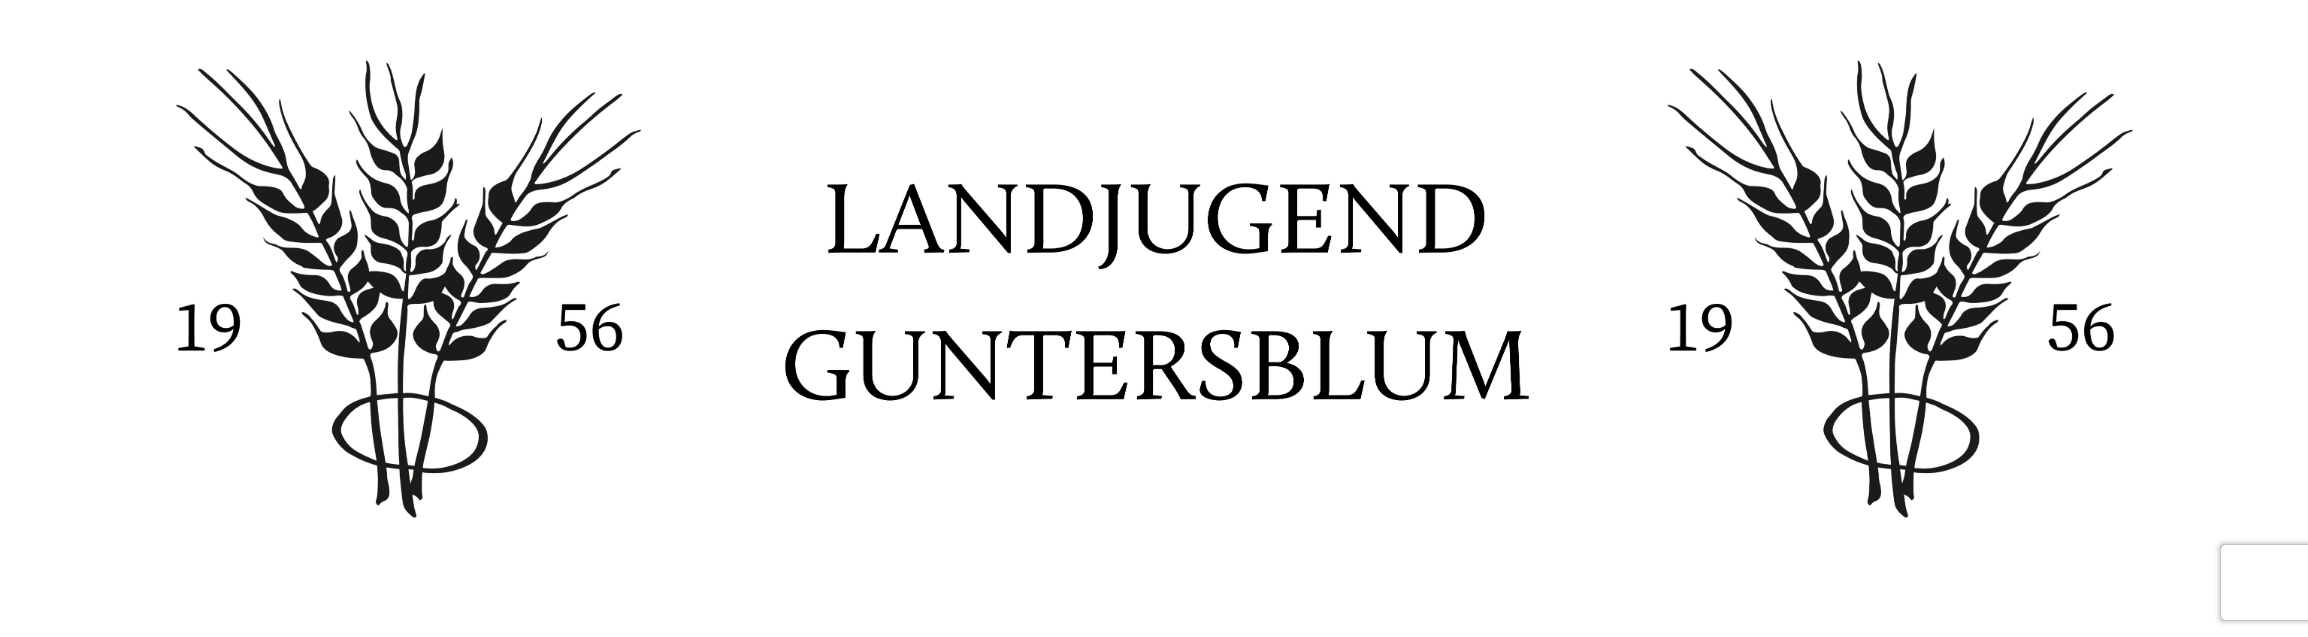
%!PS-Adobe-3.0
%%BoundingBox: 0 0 2308 637
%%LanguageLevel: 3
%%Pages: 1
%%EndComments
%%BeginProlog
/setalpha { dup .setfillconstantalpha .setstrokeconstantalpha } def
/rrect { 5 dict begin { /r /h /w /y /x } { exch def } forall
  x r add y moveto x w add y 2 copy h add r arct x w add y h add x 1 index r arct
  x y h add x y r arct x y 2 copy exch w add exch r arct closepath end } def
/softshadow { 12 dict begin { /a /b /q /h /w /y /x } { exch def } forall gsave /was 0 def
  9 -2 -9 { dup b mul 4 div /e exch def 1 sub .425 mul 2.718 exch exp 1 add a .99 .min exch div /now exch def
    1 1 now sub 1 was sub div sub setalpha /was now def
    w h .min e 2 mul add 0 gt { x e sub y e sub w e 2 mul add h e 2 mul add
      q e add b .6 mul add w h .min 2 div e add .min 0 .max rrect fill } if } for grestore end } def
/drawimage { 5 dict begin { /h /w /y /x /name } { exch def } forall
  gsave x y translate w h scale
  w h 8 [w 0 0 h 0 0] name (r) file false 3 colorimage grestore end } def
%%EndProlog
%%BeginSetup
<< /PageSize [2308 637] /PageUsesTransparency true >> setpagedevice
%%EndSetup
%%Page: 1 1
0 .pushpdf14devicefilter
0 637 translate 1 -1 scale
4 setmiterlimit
1 setgray
0 0 2308 637 rectfill
(images/1.raw) 176 60 1957 458 drawimage
gsave
newpath 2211 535 moveto 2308 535 lineto 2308 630 lineto 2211 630 lineto closepath 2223.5 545 moveto 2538.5 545 lineto 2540 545 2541 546 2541 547.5 curveto 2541 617.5 lineto 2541 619 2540 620 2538.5 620 curveto 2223.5 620 lineto 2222 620 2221 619 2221 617.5 curveto 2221 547.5 lineto 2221 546 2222 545 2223.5 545 curveto closepath eoclip newpath
0.502 setgray
2221 545 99 75 2.5 3 1 softshadow
grestore
.poppdf14devicefilter showpage
%%EOF
